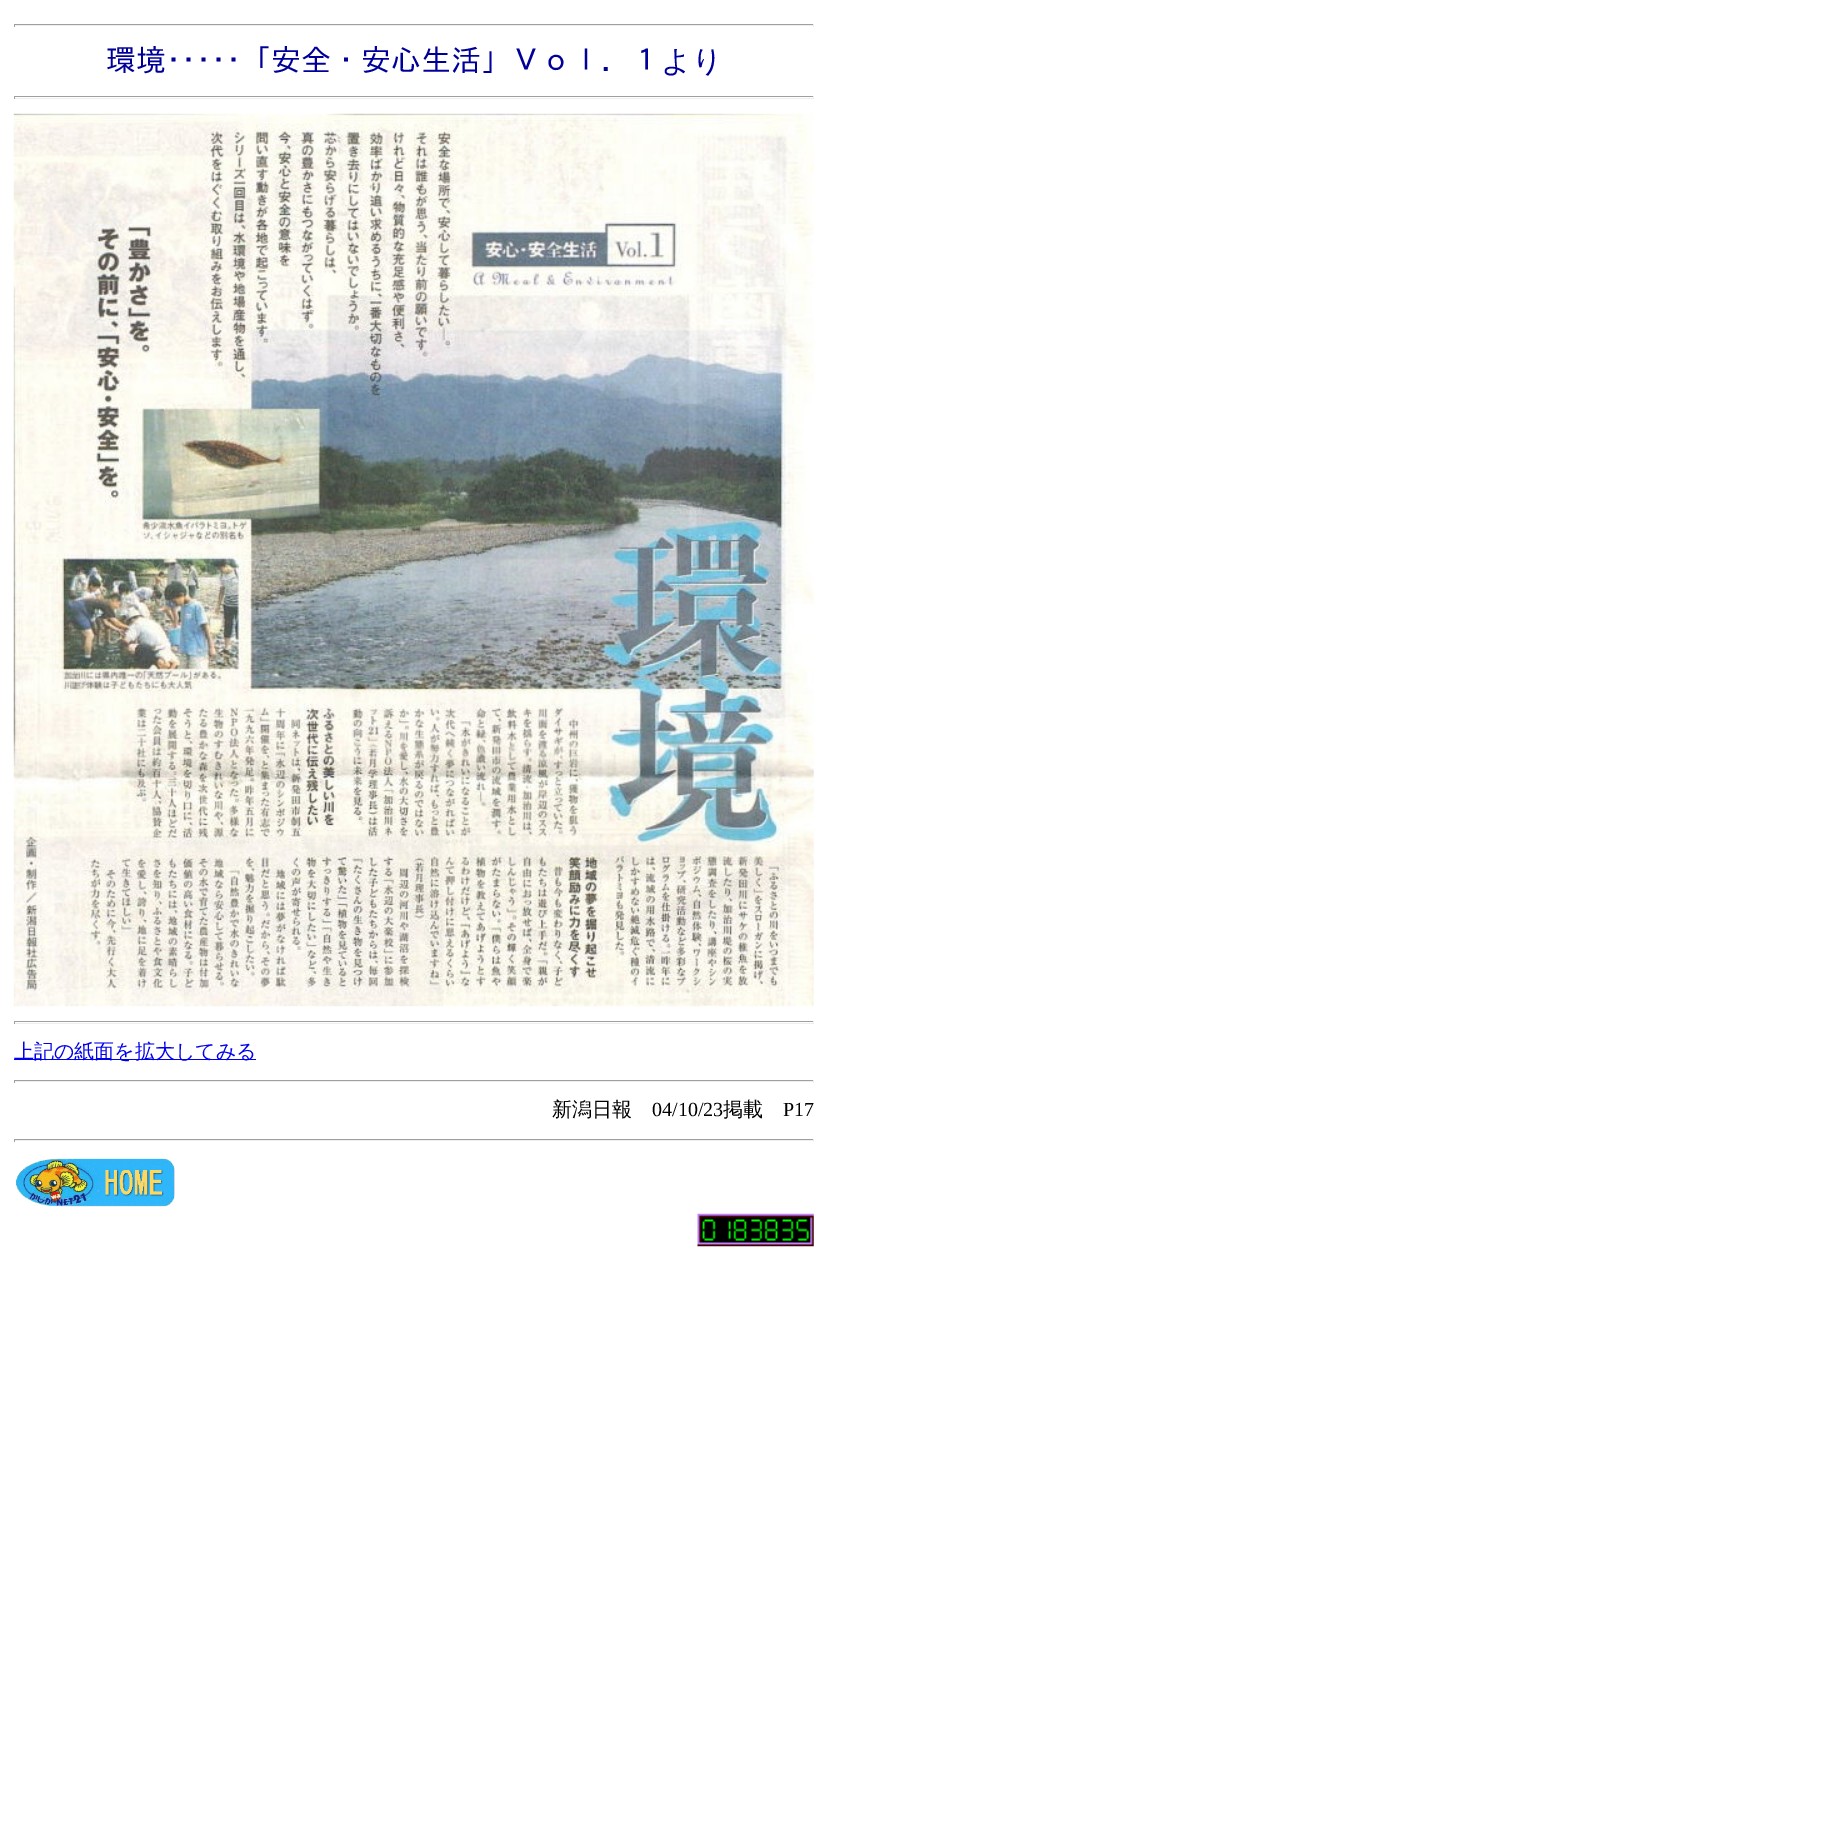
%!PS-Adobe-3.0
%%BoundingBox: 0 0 1822 1835
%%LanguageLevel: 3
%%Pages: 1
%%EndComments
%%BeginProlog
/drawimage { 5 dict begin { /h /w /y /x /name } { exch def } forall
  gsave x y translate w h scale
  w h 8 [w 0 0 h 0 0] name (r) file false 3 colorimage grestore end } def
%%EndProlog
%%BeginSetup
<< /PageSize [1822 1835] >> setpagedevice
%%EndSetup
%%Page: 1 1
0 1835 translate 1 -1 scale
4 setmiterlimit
1 setgray
0 0 1822 1835 rectfill
0.624 setgray
14 24 800 1 rectfill
0.933 setgray
813 24 1 3 rectfill
14 25 800 1 rectfill
0.624 setgray
14 24 1 3 rectfill
14 96 800 1 rectfill
0.933 setgray
813 96 1 3 rectfill
14 98 800 1 rectfill
0.624 setgray
14 96 1 3 rectfill
(images/1.raw) 13 113 801 894 drawimage
14 1021 800 1 rectfill
0.933 setgray
813 1021 1 3 rectfill
14 1023 800 1 rectfill
0.624 setgray
14 1021 1 3 rectfill
0 0 0.933 setrgbcolor
14 1059 242 1 rectfill
0.624 setgray
14 1080 800 1 rectfill
0.933 setgray
813 1080 1 3 rectfill
14 1081 800 1 rectfill
0.624 setgray
14 1080 1 3 rectfill
14 1139 800 1 rectfill
0.933 setgray
813 1139 1 3 rectfill
14 1140 800 1 rectfill
0.624 setgray
14 1139 1 3 rectfill
(images/2.raw) 16 1158 159 49 drawimage
(images/3.raw) 697 1213 117 34 drawimage
/IPAGothic-Regular [30 0 0 -30 0 0] selectfont
0 0 0.6 setrgbcolor
106 71 moveto (環境･････「安全・安心生活」Ｖｏｌ．１) show
/WenQuanYiZenHei-Medium [30 0 0 -30 0 0] selectfont
661 71 moveto (より) show
/WenQuanYiZenHei-Medium [20 0 0 -20 0 0] selectfont
0 0 0.933 setrgbcolor
14 1058 moveto (上記の紙面を拡大してみる) show
0 setgray
552 1116 moveto (新潟日報) show
/LiberationSerif-Regular [20 0 0 -20 0 0] selectfont
652 1116 moveto (04/10/23) show
/WenQuanYiZenHei-Medium [20 0 0 -20 0 0] selectfont
723 1116 moveto (掲載) show
/LiberationSerif-Regular [20 0 0 -20 0 0] selectfont
783 1116 moveto (P17) show
showpage
%%EOF
